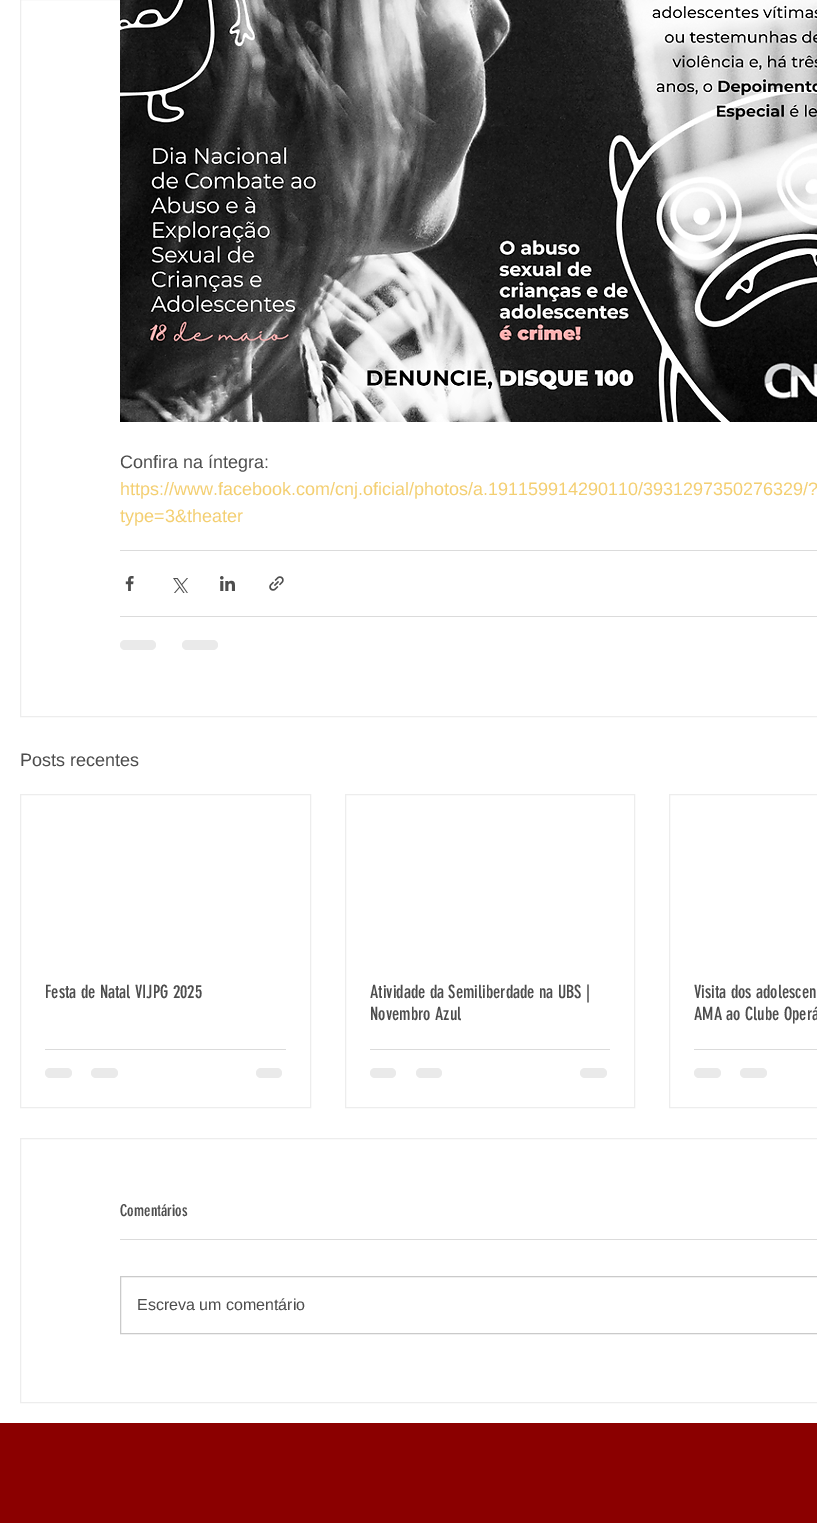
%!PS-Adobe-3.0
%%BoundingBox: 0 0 817 1523
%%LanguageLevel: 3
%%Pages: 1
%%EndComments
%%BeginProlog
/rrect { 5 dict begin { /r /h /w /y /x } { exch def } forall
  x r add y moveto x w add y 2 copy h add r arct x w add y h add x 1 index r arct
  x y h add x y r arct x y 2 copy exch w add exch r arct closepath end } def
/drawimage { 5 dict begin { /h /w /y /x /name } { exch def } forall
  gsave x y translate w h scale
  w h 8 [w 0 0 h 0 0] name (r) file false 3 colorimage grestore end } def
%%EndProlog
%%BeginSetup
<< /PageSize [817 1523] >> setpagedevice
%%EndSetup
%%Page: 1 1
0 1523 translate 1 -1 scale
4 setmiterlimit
1 setgray
0 0 817 1523 rectfill
0.929 setgray
20.5 -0.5 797 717 rectstroke
(images/1.raw) 120 0 697 422 drawimage
0.859 setgray
120 550 697 1 rectfill
(images/2.raw) 125 576 9 15 drawimage
(images/3.raw) 173 578 15 15 drawimage
(images/4.raw) 220 576 15 15 drawimage
(images/5.raw) 269 576 15 15 drawimage
120 616 697 1 rectfill
0.918 setgray
120 640 36 10 5 rrect fill
182 640 36 10 5 rrect fill
0.929 setgray
20.5 794.5 290 313 rectstroke
0.859 setgray
45 1049 241 1 rectfill
0.918 setgray
45 1068 27 10 5 rrect fill
91 1068 27 10 5 rrect fill
256 1068 26 10 5 rrect fill
0.929 setgray
345.5 794.5 289 313 rectstroke
0.859 setgray
370 1049 240 1 rectfill
0.918 setgray
370 1068 26 10 5 rrect fill
416 1068 26 10 5 rrect fill
580 1068 27 10 5 rrect fill
0.929 setgray
669.5 794.5 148 313 rectstroke
0.859 setgray
694 1049 123 1 rectfill
0.918 setgray
694 1068 27 10 5 rrect fill
740 1068 27 10 5 rrect fill
0.929 setgray
20.5 1138.5 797 264 rectstroke
0.859 setgray
120 1239 697 1 rectfill
0.792 setgray
120.5 1276.5 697 57 rectstroke
0.545 0 0 setrgbcolor
0 1423 817 100 rectfill
/LiberationSans-Regular [18 0 0 -18 0 0] selectfont
0.302 setgray
120 468 moveto (Confira na íntegra:) show
0.957 0.812 0.443 setrgbcolor
120 495 moveto (https://www.facebook.com/cnj.oficial/photos/a.191159914290110/3931297350276329/?) show
120 522 moveto (type=3&theater) show
0.302 setgray
20 766 moveto (Posts recentes) show
/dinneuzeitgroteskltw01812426-Regular [18 0 0 -18 0 0] selectfont
45 998 moveto (Festa de Natal VIJPG 2025) show
370 998 moveto (Atividade da Semiliberdade na UBS |) show
370 1020 moveto (Novembro Azul) show
694 998 moveto (Visita dos adolescen) show
694 1020 moveto (AMA ao Clube Operá) show
/dinneuzeitgroteskltw01812426-Regular [16 0 0 -16 0 0] selectfont
120 1216 moveto (Comentários) show
/LiberationSans-Regular [16 0 0 -16 0 0] selectfont
137 1310 moveto (Escreva um comentário) show
showpage
%%EOF
